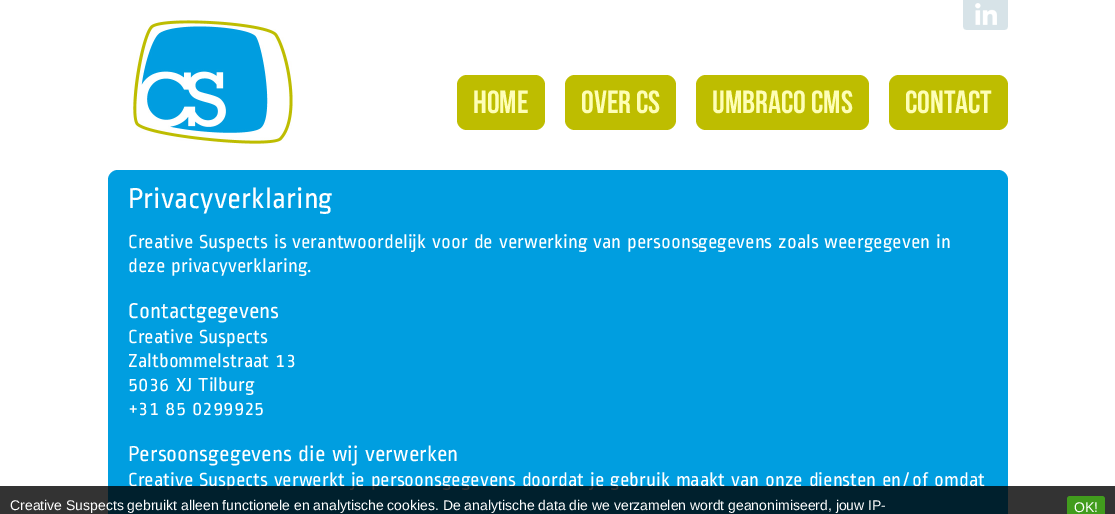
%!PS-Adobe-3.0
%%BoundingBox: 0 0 1115 514
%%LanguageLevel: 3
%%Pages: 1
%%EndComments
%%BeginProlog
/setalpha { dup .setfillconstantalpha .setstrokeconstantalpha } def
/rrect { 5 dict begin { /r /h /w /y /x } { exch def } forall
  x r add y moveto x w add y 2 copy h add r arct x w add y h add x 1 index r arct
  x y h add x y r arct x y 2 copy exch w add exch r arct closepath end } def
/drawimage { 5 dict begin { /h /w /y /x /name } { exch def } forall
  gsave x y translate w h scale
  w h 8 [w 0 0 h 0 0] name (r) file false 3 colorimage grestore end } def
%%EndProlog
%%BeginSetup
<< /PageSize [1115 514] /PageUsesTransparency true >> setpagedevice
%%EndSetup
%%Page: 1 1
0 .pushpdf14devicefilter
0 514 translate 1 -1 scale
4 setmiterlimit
1 setgray
0 0 1115 514 rectfill
(images/1.raw) 963 0 45 30 drawimage
(images/2.raw) 133 20 160 124 drawimage
0.745 0.741 0 setrgbcolor
457 75 88 55 10 rrect fill
565 75 111 55 10 rrect fill
696 75 173 55 10 rrect fill
889 75 119 55 10 rrect fill
0 0.62 0.878 setrgbcolor
108 170 900 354 10 rrect fill
/BebasNeue-Regular [32 0 0 -32 0 0] selectfont
0.996 0.996 0.714 setrgbcolor
473 113 moveto (Home) show
581 113 moveto (Over CS) show
712 113 moveto (Umbraco CMS) show
905 113 moveto (Contact) show
/RopaSans-Regular [30 0 0 -30 0 0] selectfont
1 setgray
128 208 moveto (Privacyverklaring) show
/RopaSans-Regular [20 0 0 -20 0 0] selectfont
128 248 moveto (Creative Suspects is verantwoordelijk voor de verwerking van persoonsgegevens zoals weergegeven in) show
128 272 moveto (deze privacyverklaring.) show
/RopaSans-Regular [22.5 0 0 -22.5 0 0] selectfont
128 318 moveto (Contactgegevens) show
/RopaSans-Regular [20 0 0 -20 0 0] selectfont
128 343 moveto (Creative Suspects) show
128 367 moveto (Zaltbommelstraat 13) show
128 391 moveto (5036 XJ Tilburg) show
128 415 moveto (+31 85 0299925) show
/RopaSans-Regular [22.5 0 0 -22.5 0 0] selectfont
128 461 moveto (Persoonsgegevens die wij verwerken) show
/RopaSans-Regular [20 0 0 -20 0 0] selectfont
128 486 moveto (Creative Suspects verwerkt je persoonsgegevens doordat je gebruik maakt van onze diensten en/of omdat) show
0.8 setalpha
0 setgray
0 486 1115 28 rectfill
/LiberationSans-Regular [14 0 0 -14 0 0] selectfont
1 setalpha
1 setgray
10 510 moveto (Creative Suspects gebruikt alleen functionele en analytische cookies. De analytische data die we verzamelen wordt geanonimiseerd, jouw IP-) show
0.255 0.612 0.114 setrgbcolor
1067 496 38 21 3 rrect fill
1 setgray
1074 512 moveto (OK!) show
.poppdf14devicefilter showpage
%%EOF
